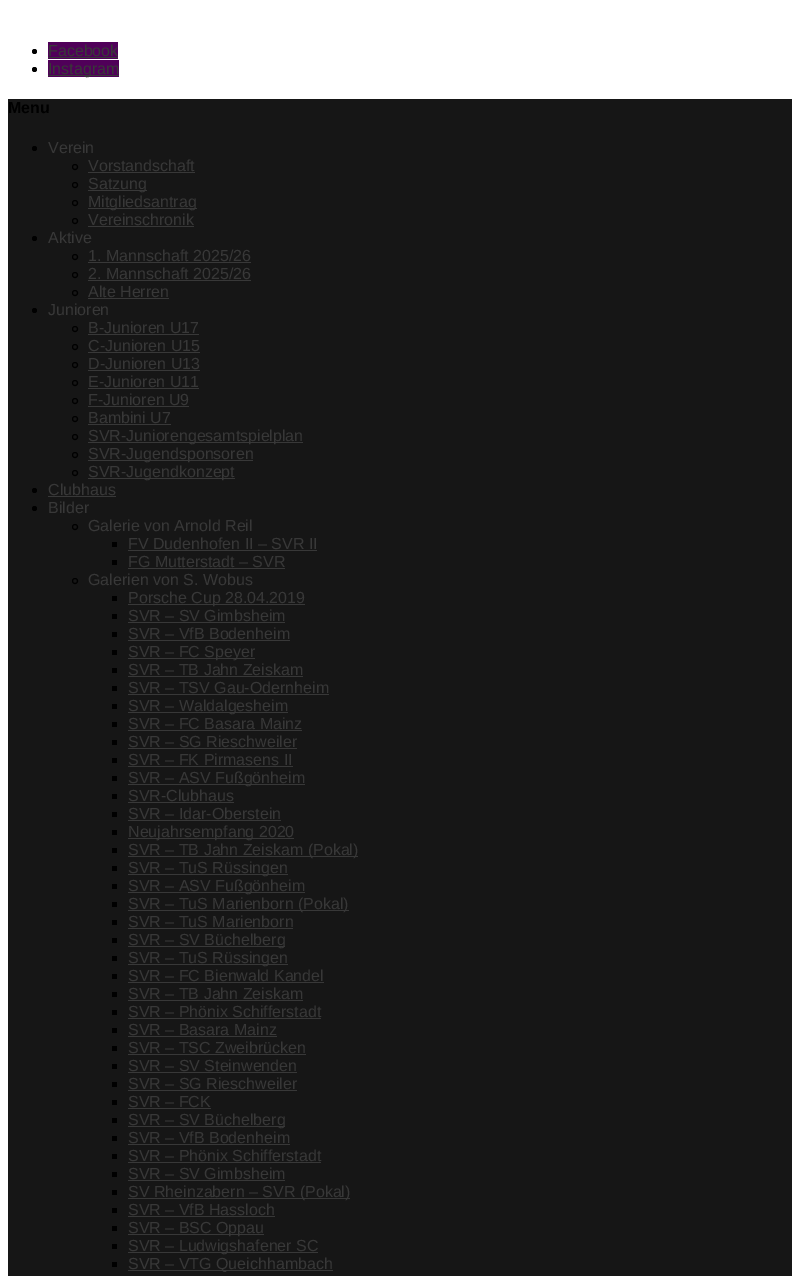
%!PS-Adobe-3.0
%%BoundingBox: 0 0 800 1276
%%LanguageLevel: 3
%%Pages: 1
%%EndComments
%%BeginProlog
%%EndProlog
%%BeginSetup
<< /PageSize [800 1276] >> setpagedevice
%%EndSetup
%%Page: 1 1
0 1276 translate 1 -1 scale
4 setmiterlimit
1 setgray
0 0 800 1276 rectfill
0 setgray
newpath 34.5 51.5 2.5 0 360 arc closepath fill
0.314 0 0.349 setrgbcolor
48 42 70 17 rectfill
0.22 setgray
48 57 70 1 rectfill
0 setgray
newpath 34.5 69.5 2.5 0 360 arc closepath fill
0.314 0 0.349 setrgbcolor
48 60 71 17 rectfill
0.22 setgray
48 75 71 1 rectfill
0.086 setgray
8 99 784 1177 rectfill
0 setgray
newpath 34.5 148.5 2.5 0 360 arc closepath fill
newpath 75 167 2.5 0 360 arc closepath stroke
0.22 setgray
88 172 107 1 rectfill
0 setgray
newpath 75 185 2.5 0 360 arc closepath stroke
0.22 setgray
88 190 59 1 rectfill
0 setgray
newpath 75 203 2.5 0 360 arc closepath stroke
0.22 setgray
88 208 109 1 rectfill
0 setgray
newpath 75 221 2.5 0 360 arc closepath stroke
0.22 setgray
88 226 106 1 rectfill
0 setgray
newpath 34.5 238.5 2.5 0 360 arc closepath fill
newpath 75 257 2.5 0 360 arc closepath stroke
0.22 setgray
88 262 163 1 rectfill
0 setgray
newpath 75 275 2.5 0 360 arc closepath stroke
0.22 setgray
88 280 163 1 rectfill
0 setgray
newpath 75 293 2.5 0 360 arc closepath stroke
0.22 setgray
88 298 81 1 rectfill
0 setgray
newpath 34.5 310.5 2.5 0 360 arc closepath fill
newpath 75 329 2.5 0 360 arc closepath stroke
0.22 setgray
88 334 111 1 rectfill
0 setgray
newpath 75 347 2.5 0 360 arc closepath stroke
0.22 setgray
88 352 112 1 rectfill
0 setgray
newpath 75 365 2.5 0 360 arc closepath stroke
0.22 setgray
88 370 112 1 rectfill
0 setgray
newpath 75 383 2.5 0 360 arc closepath stroke
0.22 setgray
88 388 111 1 rectfill
0 setgray
newpath 75 401 2.5 0 360 arc closepath stroke
0.22 setgray
88 406 101 1 rectfill
0 setgray
newpath 75 419 2.5 0 360 arc closepath stroke
0.22 setgray
88 424 83 1 rectfill
0 setgray
newpath 75 437 2.5 0 360 arc closepath stroke
0.22 setgray
88 442 215 1 rectfill
0 setgray
newpath 75 455 2.5 0 360 arc closepath stroke
0.22 setgray
88 460 165 1 rectfill
0 setgray
newpath 75 473 2.5 0 360 arc closepath stroke
0.22 setgray
88 478 147 1 rectfill
0 setgray
newpath 34.5 490.5 2.5 0 360 arc closepath fill
0.22 setgray
48 496 68 1 rectfill
0 setgray
newpath 34.5 508.5 2.5 0 360 arc closepath fill
newpath 75 527 2.5 0 360 arc closepath stroke
112 542 5 5 rectfill
0.22 setgray
128 550 189 1 rectfill
0 setgray
112 560 5 5 rectfill
0.22 setgray
128 568 157 1 rectfill
0 setgray
newpath 75 581 2.5 0 360 arc closepath stroke
112 596 5 5 rectfill
0.22 setgray
128 604 177 1 rectfill
0 setgray
112 614 5 5 rectfill
0.22 setgray
128 622 157 1 rectfill
0 setgray
112 632 5 5 rectfill
0.22 setgray
128 640 162 1 rectfill
0 setgray
112 650 5 5 rectfill
0.22 setgray
128 658 127 1 rectfill
0 setgray
112 668 5 5 rectfill
0.22 setgray
128 676 175 1 rectfill
0 setgray
112 686 5 5 rectfill
0.22 setgray
128 694 201 1 rectfill
0 setgray
112 704 5 5 rectfill
0.22 setgray
128 712 160 1 rectfill
0 setgray
112 722 5 5 rectfill
0.22 setgray
128 730 174 1 rectfill
0 setgray
112 740 5 5 rectfill
0.22 setgray
128 748 169 1 rectfill
0 setgray
112 758 5 5 rectfill
0.22 setgray
128 766 165 1 rectfill
0 setgray
112 776 5 5 rectfill
0.22 setgray
128 784 177 1 rectfill
0 setgray
112 794 5 5 rectfill
0.22 setgray
128 802 106 1 rectfill
0 setgray
112 812 5 5 rectfill
0.22 setgray
128 820 153 1 rectfill
0 setgray
112 830 5 5 rectfill
0.22 setgray
128 838 166 1 rectfill
0 setgray
112 848 5 5 rectfill
0.22 setgray
128 856 230 1 rectfill
0 setgray
112 866 5 5 rectfill
0.22 setgray
128 874 160 1 rectfill
0 setgray
112 884 5 5 rectfill
0.22 setgray
128 892 177 1 rectfill
0 setgray
112 902 5 5 rectfill
0.22 setgray
128 910 221 1 rectfill
0 setgray
112 920 5 5 rectfill
0.22 setgray
128 928 165 1 rectfill
0 setgray
112 938 5 5 rectfill
0.22 setgray
128 946 157 1 rectfill
0 setgray
112 956 5 5 rectfill
0.22 setgray
128 964 160 1 rectfill
0 setgray
112 974 5 5 rectfill
0.22 setgray
128 982 196 1 rectfill
0 setgray
112 992 5 5 rectfill
0.22 setgray
128 1000 175 1 rectfill
0 setgray
112 1010 5 5 rectfill
0.22 setgray
128 1018 193 1 rectfill
0 setgray
112 1028 5 5 rectfill
0.22 setgray
128 1036 149 1 rectfill
0 setgray
112 1046 5 5 rectfill
0.22 setgray
128 1054 178 1 rectfill
0 setgray
112 1064 5 5 rectfill
0.22 setgray
128 1072 169 1 rectfill
0 setgray
112 1082 5 5 rectfill
0.22 setgray
128 1090 169 1 rectfill
0 setgray
112 1100 5 5 rectfill
0.22 setgray
128 1108 83 1 rectfill
0 setgray
112 1118 5 5 rectfill
0.22 setgray
128 1126 157 1 rectfill
0 setgray
112 1136 5 5 rectfill
0.22 setgray
128 1144 162 1 rectfill
0 setgray
112 1154 5 5 rectfill
0.22 setgray
128 1162 193 1 rectfill
0 setgray
112 1172 5 5 rectfill
0.22 setgray
128 1180 157 1 rectfill
0 setgray
112 1190 5 5 rectfill
0.22 setgray
128 1198 222 1 rectfill
0 setgray
112 1208 5 5 rectfill
0.22 setgray
128 1216 147 1 rectfill
0 setgray
112 1226 5 5 rectfill
0.22 setgray
128 1234 136 1 rectfill
0 setgray
112 1244 5 5 rectfill
0.22 setgray
128 1252 190 1 rectfill
0 setgray
112 1262 5 5 rectfill
0.22 setgray
128 1270 205 1 rectfill
/LiberationSans-Regular [16 0 0 -16 0 0] selectfont
48 56 moveto (Facebook) show
48 74 moveto (Instagram) show
/LiberationSans-Bold [16 0 0 -16 0 0] selectfont
0 setgray
8 113 moveto (Menu) show
/LiberationSans-Regular [16 0 0 -16 0 0] selectfont
0.22 setgray
48 153 moveto (Verein) show
88 171 moveto (Vorstandschaft) show
88 189 moveto (Satzung) show
88 207 moveto (Mitgliedsantrag) show
88 225 moveto (Vereinschronik) show
48 243 moveto (Aktive) show
88 261 moveto (1. Mannschaft 2025/26) show
88 279 moveto (2. Mannschaft 2025/26) show
88 297 moveto (Alte Herren) show
48 315 moveto (Junioren) show
88 333 moveto (B-Junioren U17) show
88 351 moveto (C-Junioren U15) show
88 369 moveto (D-Junioren U13) show
88 387 moveto (E-Junioren U11) show
88 405 moveto (F-Junioren U9) show
88 423 moveto (Bambini U7) show
88 441 moveto (SVR-Juniorengesamtspielplan) show
88 459 moveto (SVR-Jugendsponsoren) show
88 477 moveto (SVR-Jugendkonzept) show
48 495 moveto (Clubhaus) show
48 513 moveto (Bilder) show
88 531 moveto (Galerie von Arnold Reil) show
128 549 moveto (FV Dudenhofen II – SVR II) show
128 567 moveto (FG Mutterstadt – SVR) show
88 585 moveto (Galerien von S. Wobus) show
128 603 moveto (Porsche Cup 28.04.2019) show
128 621 moveto (SVR – SV Gimbsheim) show
128 639 moveto (SVR – VfB Bodenheim) show
128 657 moveto (SVR – FC Speyer) show
128 675 moveto (SVR – TB Jahn Zeiskam) show
128 693 moveto (SVR – TSV Gau-Odernheim) show
128 711 moveto (SVR – Waldalgesheim) show
128 729 moveto (SVR – FC Basara Mainz) show
128 747 moveto (SVR – SG Rieschweiler) show
128 765 moveto (SVR – FK Pirmasens II) show
128 783 moveto (SVR – ASV Fußgönheim) show
128 801 moveto (SVR-Clubhaus) show
128 819 moveto (SVR – Idar-Oberstein) show
128 837 moveto (Neujahrsempfang 2020) show
128 855 moveto (SVR – TB Jahn Zeiskam \(Pokal\)) show
128 873 moveto (SVR – TuS Rüssingen) show
128 891 moveto (SVR – ASV Fußgönheim) show
128 909 moveto (SVR – TuS Marienborn \(Pokal\)) show
128 927 moveto (SVR – TuS Marienborn) show
128 945 moveto (SVR – SV Büchelberg) show
128 963 moveto (SVR – TuS Rüssingen) show
128 981 moveto (SVR – FC Bienwald Kandel) show
128 999 moveto (SVR – TB Jahn Zeiskam) show
128 1017 moveto (SVR – Phönix Schifferstadt) show
128 1035 moveto (SVR – Basara Mainz) show
128 1053 moveto (SVR – TSC Zweibrücken) show
128 1071 moveto (SVR – SV Steinwenden) show
128 1089 moveto (SVR – SG Rieschweiler) show
128 1107 moveto (SVR – FCK) show
128 1125 moveto (SVR – SV Büchelberg) show
128 1143 moveto (SVR – VfB Bodenheim) show
128 1161 moveto (SVR – Phönix Schifferstadt) show
128 1179 moveto (SVR – SV Gimbsheim) show
128 1197 moveto (SV Rheinzabern – SVR \(Pokal\)) show
128 1215 moveto (SVR – VfB Hassloch) show
128 1233 moveto (SVR – BSC Oppau) show
128 1251 moveto (SVR – Ludwigshafener SC) show
128 1269 moveto (SVR – VTG Queichhambach) show
showpage
%%EOF
